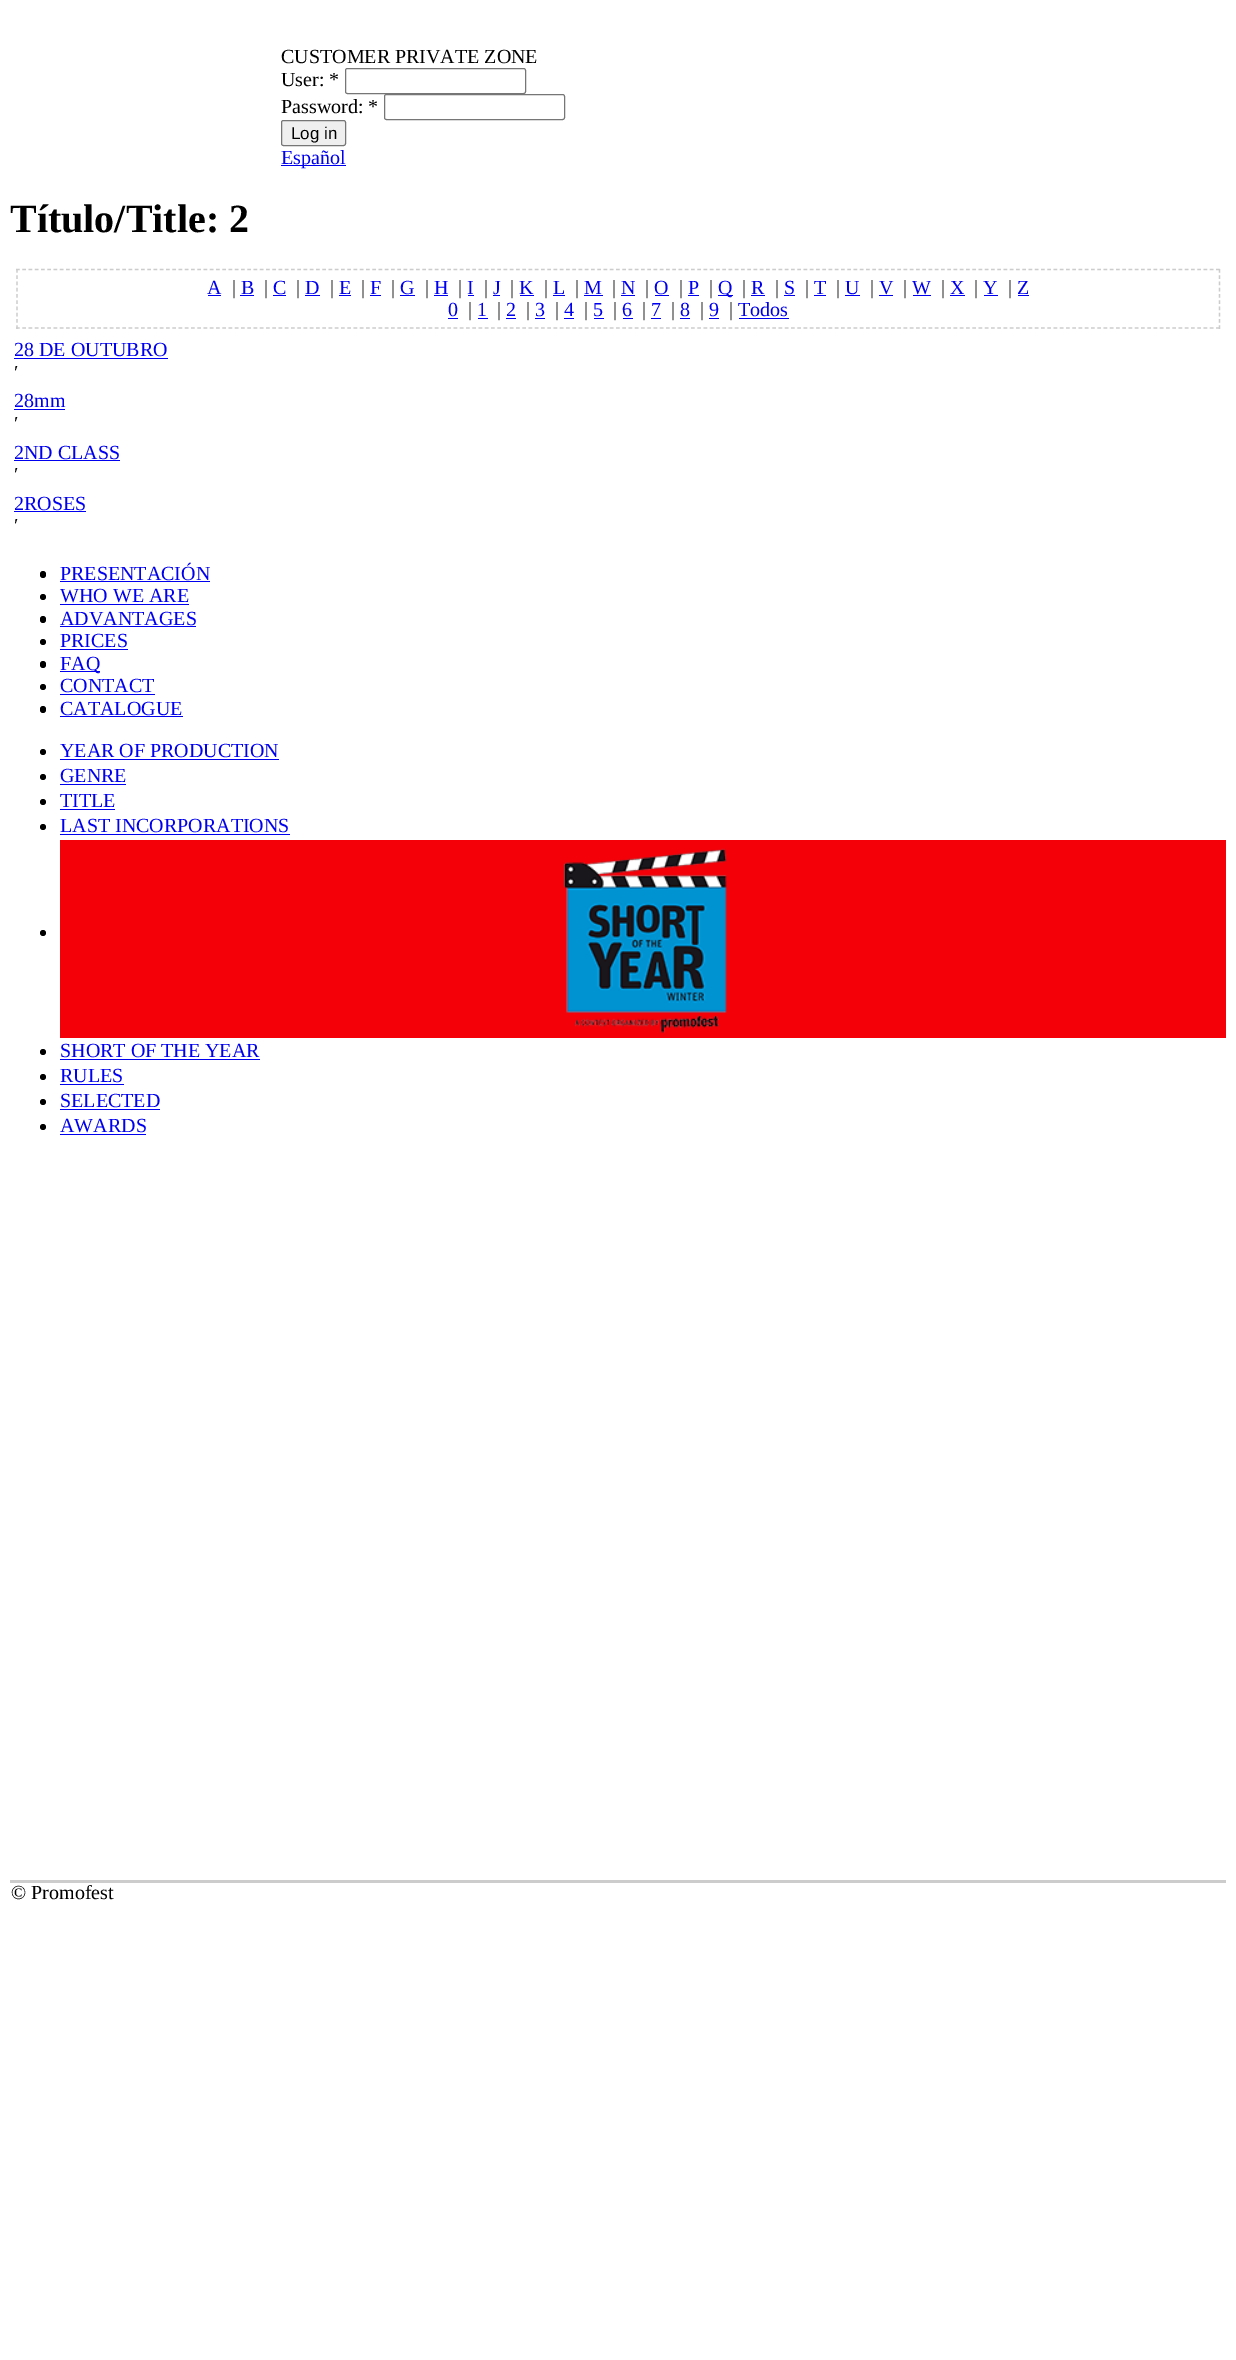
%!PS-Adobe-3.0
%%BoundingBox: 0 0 1236 2360
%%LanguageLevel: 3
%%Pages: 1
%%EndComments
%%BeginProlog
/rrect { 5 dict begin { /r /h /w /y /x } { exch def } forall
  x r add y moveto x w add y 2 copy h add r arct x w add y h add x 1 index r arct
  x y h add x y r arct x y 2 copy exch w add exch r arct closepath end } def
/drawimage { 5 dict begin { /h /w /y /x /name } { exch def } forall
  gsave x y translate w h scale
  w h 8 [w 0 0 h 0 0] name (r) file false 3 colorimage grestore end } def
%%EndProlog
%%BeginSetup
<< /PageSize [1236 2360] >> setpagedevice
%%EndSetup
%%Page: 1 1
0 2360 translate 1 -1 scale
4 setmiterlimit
1 setgray
0 0 1236 2360 rectfill
0.463 setgray
345.5 68.5 180 25 2 rrect stroke
384.5 94.5 180 25 2 rrect stroke
0.937 setgray
281.5 120.5 64 25 2 rrect gsave fill grestore
0.463 setgray
stroke
0 0 0.933 setrgbcolor
281 165 65 1 rectfill
0.8 setgray
1.2 setlinewidth
[3.75 2.5] 0 setdash
newpath 16 269.5 moveto 1220 269.5 lineto stroke
newpath 1219.5 269 moveto 1219.5 329 lineto stroke
newpath 16 328 moveto 1220 328 lineto stroke
newpath 17 269 moveto 17 329 lineto stroke
0 0 0.933 setrgbcolor
208 295 13 1 rectfill
240 295 14 1 rectfill
273 295 13 1 rectfill
305 295 15 1 rectfill
339 295 12 1 rectfill
370 295 11 1 rectfill
400 295 15 1 rectfill
434 295 14 1 rectfill
468 295 6 1 rectfill
493 295 7 1 rectfill
520 295 14 1 rectfill
553 295 12 1 rectfill
584 295 19 1 rectfill
621 295 14 1 rectfill
655 295 14 1 rectfill
688 295 11 1 rectfill
718 295 15 1 rectfill
751 295 14 1 rectfill
784 295 11 1 rectfill
814 295 12 1 rectfill
845 295 15 1 rectfill
879 295 14 1 rectfill
913 295 18 1 rectfill
950 295 15 1 rectfill
984 295 14 1 rectfill
1018 295 11 1 rectfill
448 318 10 1 rectfill
478 318 10 1 rectfill
506 318 10 1 rectfill
535 318 10 1 rectfill
564 318 10 1 rectfill
594 318 10 1 rectfill
623 318 10 1 rectfill
651 318 10 1 rectfill
680 318 10 1 rectfill
709 318 10 1 rectfill
739 318 50 1 rectfill
14 358 154 1 rectfill
14 409 51 1 rectfill
14 460 106 1 rectfill
14 511 72 1 rectfill
0 setgray
40 571 6 7 3 rrect fill
0 0 0.933 setrgbcolor
60 581 150 1 rectfill
0 setgray
newpath 43 597 3 0 360 arc closepath fill
0 0 0.933 setrgbcolor
60 604 129 1 rectfill
0 setgray
40 616 6 7 3 rrect fill
0 0 0.933 setrgbcolor
60 626 136 1 rectfill
0 setgray
newpath 43 642 3 0 360 arc closepath fill
0 0 0.933 setrgbcolor
60 649 68 1 rectfill
0 setgray
40 661 6 7 3 rrect fill
0 0 0.933 setrgbcolor
60 671 40 1 rectfill
0 setgray
newpath 43 687 3 0 360 arc closepath fill
0 0 0.933 setrgbcolor
60 694 95 1 rectfill
0 setgray
40 706 6 7 3 rrect fill
0 0 0.933 setrgbcolor
60 716 123 1 rectfill
0 setgray
newpath 43 752 3 0 360 arc closepath fill
0 0 0.933 setrgbcolor
60 759 219 1 rectfill
0 setgray
newpath 43 777 3 0 360 arc closepath fill
0 0 0.933 setrgbcolor
60 784 66 1 rectfill
0 setgray
newpath 43 802 3 0 360 arc closepath fill
0 0 0.933 setrgbcolor
60 809 55 1 rectfill
0 setgray
newpath 43 827 3 0 360 arc closepath fill
0 0 0.933 setrgbcolor
60 834 230 1 rectfill
0.957 0 0.031 setrgbcolor
60 840 1166 198 rectfill
0 setgray
newpath 43 933 3 0 360 arc closepath fill
(images/1.raw) 563 848 164 185 drawimage
newpath 43 1052 3 0 360 arc closepath fill
0 0 0.933 setrgbcolor
60 1059 200 1 rectfill
0 setgray
newpath 43 1077 3 0 360 arc closepath fill
0 0 0.933 setrgbcolor
60 1084 64 1 rectfill
0 setgray
newpath 43 1102 3 0 360 arc closepath fill
0 0 0.933 setrgbcolor
60 1109 100 1 rectfill
0 setgray
newpath 43 1127 3 0 360 arc closepath fill
0 0 0.933 setrgbcolor
60 1134 86 1 rectfill
0.8 setgray
10 1880 1216 3 rectfill
/LiberationSerif-Regular [20 0 0 -20 0 0] selectfont
0 setgray
281 63 moveto (CUSTOMER PRIVATE ZONE) show
281 86 moveto (User: *) show
281 113 moveto (Password: *) show
/LiberationSans-Regular [17 0 0 -17 0 0] selectfont
291 139 moveto (Log in) show
/LiberationSerif-Regular [20 0 0 -20 0 0] selectfont
0 0 0.933 setrgbcolor
281 164 moveto (Español) show
/LiberationSerif-Bold [40 0 0 -40 0 0] selectfont
0 setgray
10 232 moveto (Título/Title: 2) show
/LiberationSerif-Regular [20 0 0 -20 0 0] selectfont
0 0 0.933 setrgbcolor
207 294 moveto (A) show
0.2 setgray
232 294 moveto (|) show
0 0 0.933 setrgbcolor
241 294 moveto (B) show
0.2 setgray
264 294 moveto (|) show
0 0 0.933 setrgbcolor
273 294 moveto (C) show
0.2 setgray
296 294 moveto (|) show
0 0 0.933 setrgbcolor
305 294 moveto (D) show
0.2 setgray
330 294 moveto (|) show
0 0 0.933 setrgbcolor
339 294 moveto (E) show
0.2 setgray
361 294 moveto (|) show
0 0 0.933 setrgbcolor
370 294 moveto (F) show
0.2 setgray
391 294 moveto (|) show
0 0 0.933 setrgbcolor
400 294 moveto (G) show
0.2 setgray
425 294 moveto (|) show
0 0 0.933 setrgbcolor
434 294 moveto (H) show
0.2 setgray
458 294 moveto (|) show
0 0 0.933 setrgbcolor
467 294 moveto (I) show
0.2 setgray
484 294 moveto (|) show
0 0 0.933 setrgbcolor
493 294 moveto (J) show
0.2 setgray
510 294 moveto (|) show
0 0 0.933 setrgbcolor
519 294 moveto (K) show
0.2 setgray
544 294 moveto (|) show
0 0 0.933 setrgbcolor
553 294 moveto (L) show
0.2 setgray
575 294 moveto (|) show
0 0 0.933 setrgbcolor
584 294 moveto (M) show
0.2 setgray
612 294 moveto (|) show
0 0 0.933 setrgbcolor
621 294 moveto (N) show
0.2 setgray
645 294 moveto (|) show
0 0 0.933 setrgbcolor
654 294 moveto (O) show
0.2 setgray
679 294 moveto (|) show
0 0 0.933 setrgbcolor
688 294 moveto (P) show
0.2 setgray
709 294 moveto (|) show
0 0 0.933 setrgbcolor
718 294 moveto (Q) show
0.2 setgray
742 294 moveto (|) show
0 0 0.933 setrgbcolor
751 294 moveto (R) show
0.2 setgray
775 294 moveto (|) show
0 0 0.933 setrgbcolor
784 294 moveto (S) show
0.2 setgray
805 294 moveto (|) show
0 0 0.933 setrgbcolor
814 294 moveto (T) show
0.2 setgray
836 294 moveto (|) show
0 0 0.933 setrgbcolor
845 294 moveto (U) show
0.2 setgray
870 294 moveto (|) show
0 0 0.933 setrgbcolor
879 294 moveto (V) show
0.2 setgray
903 294 moveto (|) show
0 0 0.933 setrgbcolor
912 294 moveto (W) show
0.2 setgray
941 294 moveto (|) show
0 0 0.933 setrgbcolor
950 294 moveto (X) show
0.2 setgray
974 294 moveto (|) show
0 0 0.933 setrgbcolor
983 294 moveto (Y) show
0.2 setgray
1008 294 moveto (|) show
0 0 0.933 setrgbcolor
1017 294 moveto (Z) show
448 316 moveto (0) show
0.2 setgray
468 316 moveto (|) show
0 0 0.933 setrgbcolor
477 316 moveto (1) show
0.2 setgray
497 316 moveto (|) show
0 0 0.933 setrgbcolor
506 316 moveto (2) show
0.2 setgray
526 316 moveto (|) show
0 0 0.933 setrgbcolor
535 316 moveto (3) show
0.2 setgray
555 316 moveto (|) show
0 0 0.933 setrgbcolor
564 316 moveto (4) show
0.2 setgray
584 316 moveto (|) show
0 0 0.933 setrgbcolor
593 316 moveto (5) show
0.2 setgray
613 316 moveto (|) show
0 0 0.933 setrgbcolor
622 316 moveto (6) show
0.2 setgray
642 316 moveto (|) show
0 0 0.933 setrgbcolor
651 316 moveto (7) show
0.2 setgray
671 316 moveto (|) show
0 0 0.933 setrgbcolor
680 316 moveto (8) show
0.2 setgray
700 316 moveto (|) show
0 0 0.933 setrgbcolor
709 316 moveto (9) show
0.2 setgray
729 316 moveto (|) show
0 0 0.933 setrgbcolor
738 316 moveto (Todos) show
14 356 moveto (28 DE OUTUBRO) show
0 setgray
14 379 moveto (′) show
0 0 0.933 setrgbcolor
14 407 moveto (28mm) show
0 setgray
14 430 moveto (′) show
0 0 0.933 setrgbcolor
14 459 moveto (2ND CLASS) show
0 setgray
14 481 moveto (′) show
0 0 0.933 setrgbcolor
14 510 moveto (2ROSES) show
0 setgray
14 532 moveto (′) show
0 0 0.933 setrgbcolor
60 580 moveto (PRESENTACIÓN) show
60 602 moveto (WHO WE ARE) show
60 625 moveto (ADVANTAGES) show
60 647 moveto (PRICES) show
60 670 moveto (FAQ) show
60 692 moveto (CONTACT) show
60 715 moveto (CATALOGUE) show
60 757 moveto (YEAR OF PRODUCTION) show
60 782 moveto (GENRE) show
60 807 moveto (TITLE) show
60 832 moveto (LAST INCORPORATIONS) show
60 1057 moveto (SHORT OF THE YEAR) show
60 1082 moveto (RULES) show
60 1107 moveto (SELECTED) show
60 1132 moveto (AWARDS) show
0 setgray
11 1899 moveto (© Promofest) show
showpage
%%EOF
